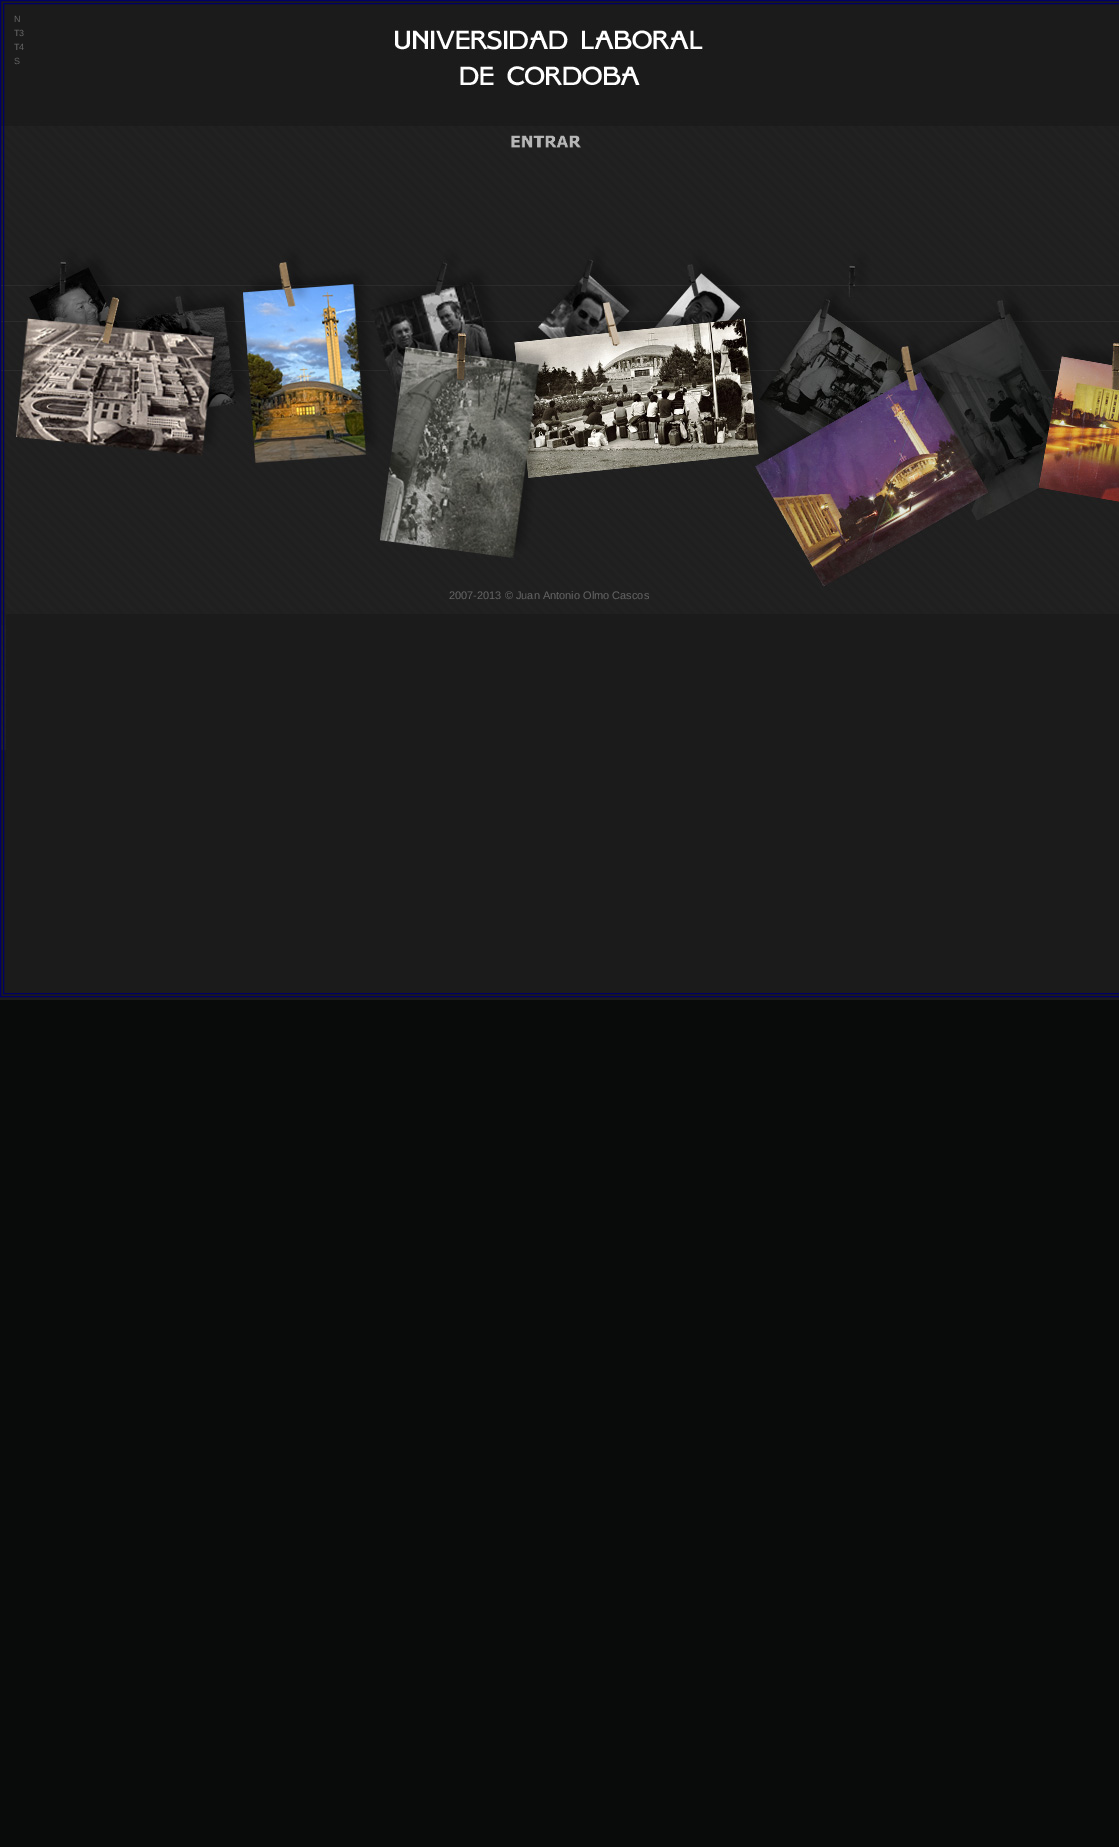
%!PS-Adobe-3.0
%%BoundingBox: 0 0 1119 1847
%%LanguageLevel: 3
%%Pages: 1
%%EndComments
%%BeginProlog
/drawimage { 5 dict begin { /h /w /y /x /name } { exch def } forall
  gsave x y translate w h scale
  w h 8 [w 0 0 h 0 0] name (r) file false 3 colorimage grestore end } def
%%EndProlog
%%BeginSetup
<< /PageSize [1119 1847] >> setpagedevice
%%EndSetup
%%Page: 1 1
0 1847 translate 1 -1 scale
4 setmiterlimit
0.035 0.043 0.039 setrgbcolor
0 0 1119 1847 rectfill
(images/1.raw) 0 1 1119 999 drawimage
0 0 0.4 setrgbcolor
0.5 0.5 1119 996 rectstroke
3.5 3.5 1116 990 rectstroke
(images/2.raw) 511 135 70 13 drawimage
/LiberationSans-Regular [9 0 0 -9 0 0] selectfont
0.396 setgray
14 22 moveto (N) show
14 36 moveto (T3) show
14 50 moveto (T4) show
14 64 moveto (S) show
/LiberationSans-Regular [11 0 0 -11 0 0] selectfont
449 599 moveto (2007-2013 © Juan Antonio Olmo Cascos) show
showpage
%%EOF
